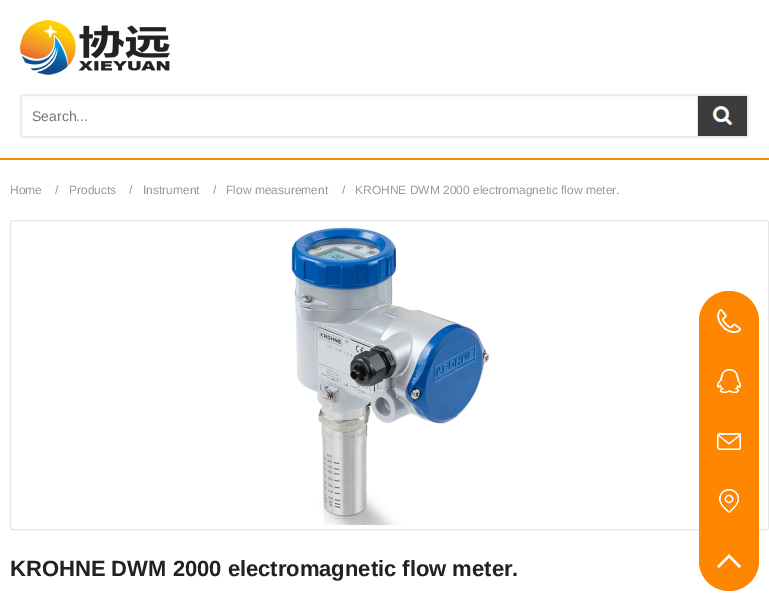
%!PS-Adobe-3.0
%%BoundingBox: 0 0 769 597
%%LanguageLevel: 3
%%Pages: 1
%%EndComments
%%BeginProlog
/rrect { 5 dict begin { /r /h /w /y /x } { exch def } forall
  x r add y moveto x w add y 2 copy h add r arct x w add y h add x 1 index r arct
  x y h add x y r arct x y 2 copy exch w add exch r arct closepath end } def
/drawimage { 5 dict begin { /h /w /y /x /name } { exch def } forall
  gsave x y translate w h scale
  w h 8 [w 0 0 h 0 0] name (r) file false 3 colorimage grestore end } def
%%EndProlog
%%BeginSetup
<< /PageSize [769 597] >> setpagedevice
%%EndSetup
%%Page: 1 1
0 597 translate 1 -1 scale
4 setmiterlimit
1 setgray
0 0 769 597 rectfill
(images/1.raw) 20 20 150 55 drawimage
0.922 setgray
2 setlinewidth
21 95 727 42 2 rrect stroke
(images/2.raw) 698 96 49 40 drawimage
0.859 0.878 0.886 setrgbcolor
697 96 1 40 rectfill
1 0.525 0 setrgbcolor
0 158 769 2 rectfill
0.898 setgray
1 setlinewidth
10.5 220.5 758 309 2.5 rrect stroke
(images/3.raw) 291 227 199 298 drawimage
1 0.525 0 setrgbcolor
699 291 60 300 30 rrect fill
(images/4.raw) 717 309 24 24 drawimage
(images/5.raw) 717 369 24 24 drawimage
(images/6.raw) 717 433 24 17 drawimage
(images/7.raw) 719 489 20 24 drawimage
(images/8.raw) 717 554 24 14 drawimage
/LiberationSans-Regular [14 0 0 -14 0 0] selectfont
0.459 setgray
32 121 moveto (Search...) show
/LiberationSans-Regular [12 0 0 -12 0 0] selectfont
0.6 setgray
10 194 moveto (Home) show
55 194 moveto (/) show
69 194 moveto (Products) show
129 194 moveto (/) show
143 194 moveto (Instrument) show
213 194 moveto (/) show
226 194 moveto (Flow measurement) show
342 194 moveto (/) show
355 194 moveto (KROHNE DWM 2000 electromagnetic flow meter.) show
/LiberationSans-Bold [22 0 0 -22 0 0] selectfont
0.133 setgray
10 576 moveto (KROHNE DWM 2000 electromagnetic flow meter.) show
showpage
%%EOF
